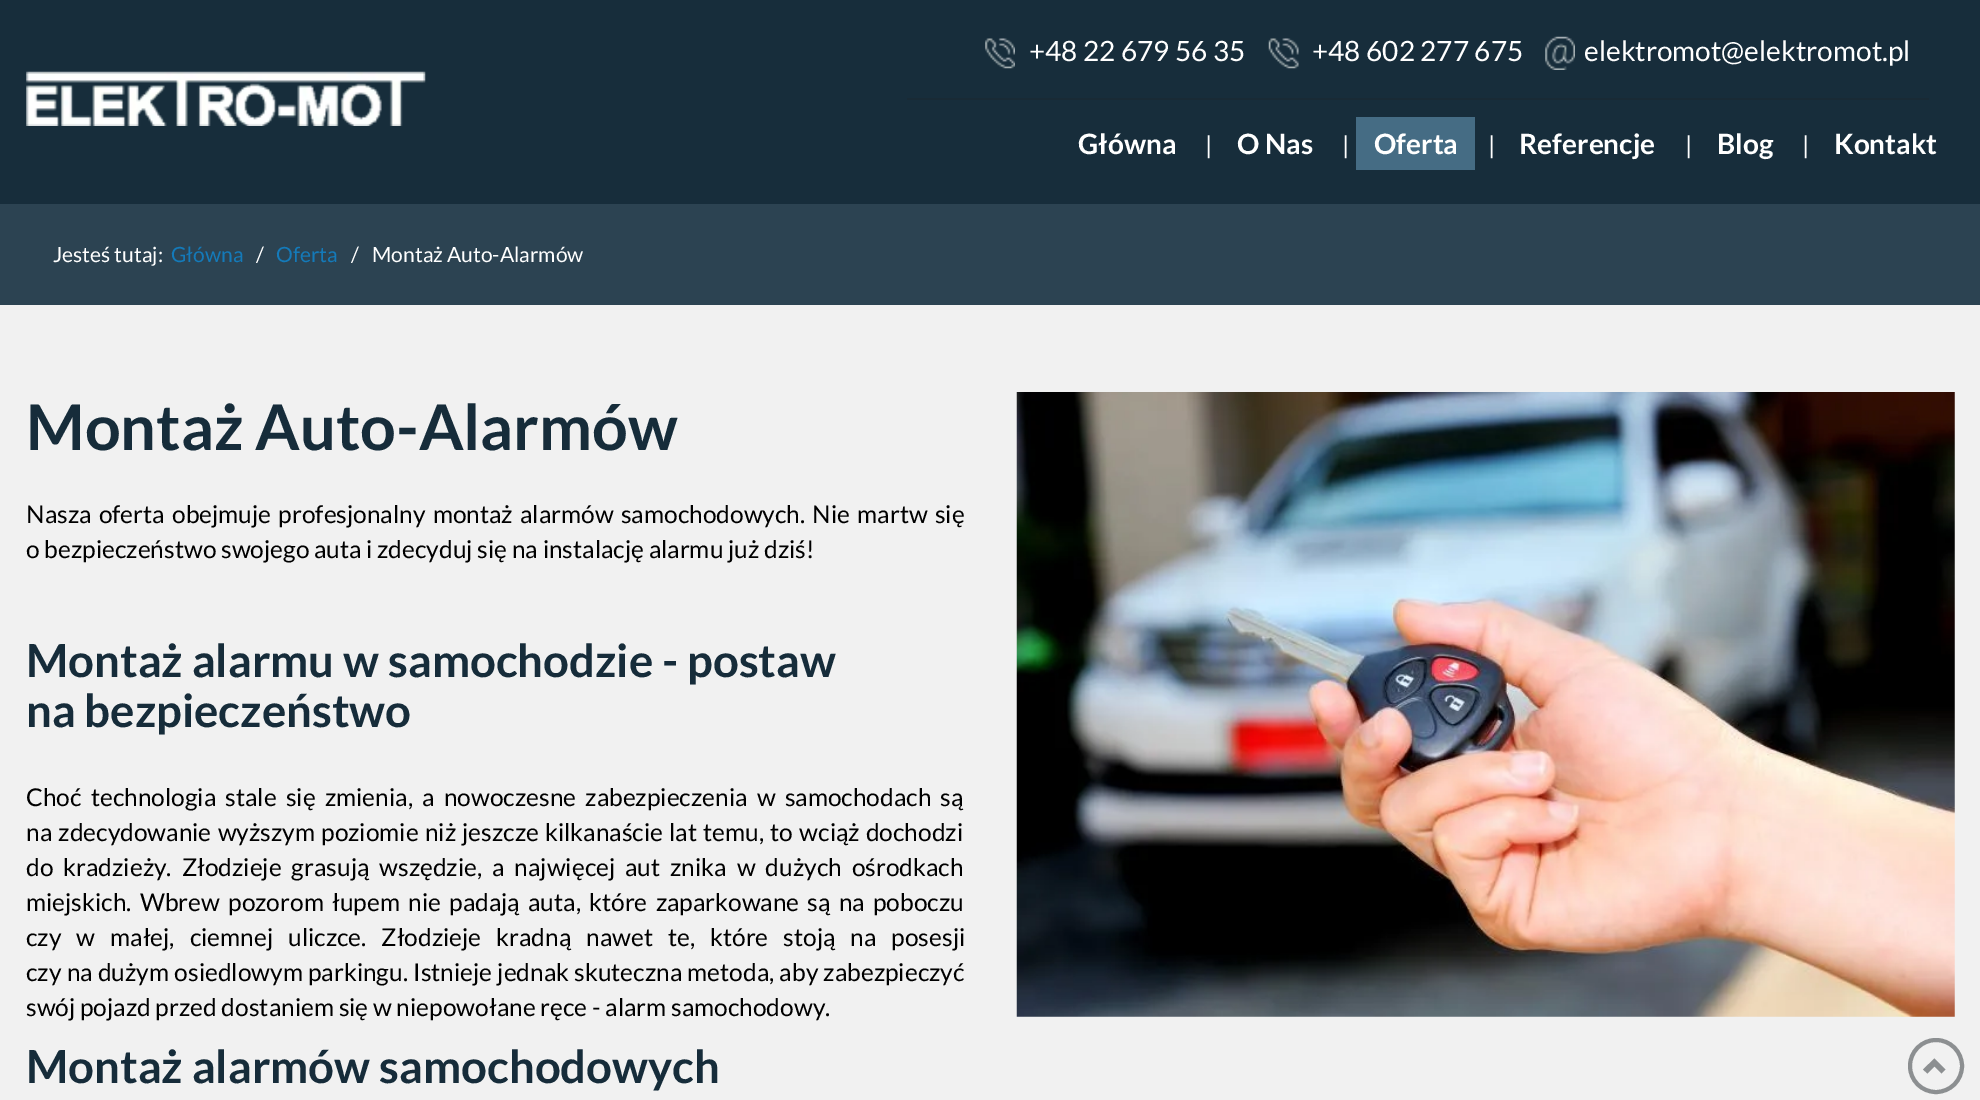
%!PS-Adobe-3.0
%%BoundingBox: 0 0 1980 1100
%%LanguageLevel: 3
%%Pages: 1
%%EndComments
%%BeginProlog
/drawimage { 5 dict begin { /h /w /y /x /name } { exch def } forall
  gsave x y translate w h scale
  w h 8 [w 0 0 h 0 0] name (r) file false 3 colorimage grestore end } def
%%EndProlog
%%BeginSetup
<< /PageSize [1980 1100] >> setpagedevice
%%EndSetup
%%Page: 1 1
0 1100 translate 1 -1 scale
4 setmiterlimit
0.945 setgray
0 0 1980 1100 rectfill
0.09 0.176 0.231 setrgbcolor
0 0 1980 204 rectfill
(images/1.raw) 26 71 400 55 drawimage
0.098 0.165 0.208 setrgbcolor
907 98 1022 2 rectfill
(images/2.raw) 985 38 30 31 drawimage
(images/3.raw) 1268 38 31 31 drawimage
(images/4.raw) 1545 36 30 34 drawimage
0.271 0.424 0.518 setrgbcolor
1356 117 119 53 rectfill
0.173 0.263 0.322 setrgbcolor
0 204 1980 101 rectfill
(images/5.raw) 1016 392 939 625 drawimage
0.549 0.561 0.569 setrgbcolor
4 setlinewidth
newpath 1936 1066 26 0 360 arc closepath stroke
newpath 1945.5 1069.5 moveto 1941.5 1073.5 lineto 1934.5 1066.5 lineto 1927.5 1073.5 lineto 1923 1069.5 lineto 1934.5 1058.5 lineto closepath fill
/Lato-Regular [28 0 0 -28 0 0] selectfont
1 setgray
1029 61 moveto (+48 22 679 56 35) show
1312 61 moveto (+48 602 277 675) show
1584 61 moveto (elektromot@elektromot.pl) show
/Lato-Bold [28 0 0 -28 0 0] selectfont
1078 154 moveto (Główna) show
/Lato-Regular [24.5 0 0 -24.5 0 0] selectfont
1205 154 moveto (|) show
/Lato-Bold [28 0 0 -28 0 0] selectfont
1237 154 moveto (O Nas) show
/Lato-Regular [24.5 0 0 -24.5 0 0] selectfont
1342 154 moveto (|) show
/Lato-Bold [28 0 0 -28 0 0] selectfont
1374 154 moveto (Oferta) show
/Lato-Regular [24.5 0 0 -24.5 0 0] selectfont
1488 154 moveto (|) show
/Lato-Bold [28 0 0 -28 0 0] selectfont
1519 154 moveto (Referencje) show
/Lato-Regular [24.5 0 0 -24.5 0 0] selectfont
1685 154 moveto (|) show
/Lato-Bold [28 0 0 -28 0 0] selectfont
1717 154 moveto (Blog) show
/Lato-Regular [24.5 0 0 -24.5 0 0] selectfont
1802 154 moveto (|) show
/Lato-Bold [28 0 0 -28 0 0] selectfont
1834 154 moveto (Kontakt) show
/Lato-Regular [21 0 0 -21 0 0] selectfont
53 262 moveto (Jesteś tutaj:) show
0.078 0.478 0.725 setrgbcolor
171 262 moveto (Główna) show
1 setgray
256 262 moveto (/) show
0.078 0.478 0.725 setrgbcolor
276 262 moveto (Oferta) show
1 setgray
351 262 moveto (/) show
372 262 moveto (Montaż Auto-Alarmów) show
/Lato-Bold [63 0 0 -63 0 0] selectfont
0.086 0.173 0.227 setrgbcolor
26 450 moveto (Montaż Auto-Alarmów) show
/Lato-Regular [24.5 0 0 -24.5 0 0] selectfont
0 setgray
26 523 moveto 2.5 0 32 (Nasza oferta obejmuje profesjonalny montaż alarmów samochodowych. Nie martw się) widthshow
26 558 moveto (o bezpieczeństwo swojego auta i zdecyduj się na instalację alarmu już dziś!) show
/Lato-Bold [45.5 0 0 -45.5 0 0] selectfont
0.086 0.173 0.227 setrgbcolor
26 677 moveto (Montaż alarmu w samochodzie - postaw) show
26 727 moveto (na bezpieczeństwo) show
/Lato-Regular [24.5 0 0 -24.5 0 0] selectfont
0 setgray
26 806 moveto 4.5 0 32 (Choć technologia stale się zmienia, a nowoczesne zabezpieczenia w samochodach są) widthshow
26 841 moveto 1.5 0 32 (na zdecydowanie wyższym poziomie niż jeszcze kilkanaście lat temu, to wciąż dochodzi) widthshow
26 876 moveto 5.25 0 32 (do kradzieży. Złodzieje grasują wszędzie, a najwięcej aut znika w dużych ośrodkach) widthshow
26 911 moveto 3.5 0 32 (miejskich. Wbrew pozorom łupem nie padają auta, które zaparkowane są na poboczu) widthshow
26 946 moveto 10.25 0 32 (czy w małej, ciemnej uliczce. Złodzieje kradną nawet te, które stoją na posesji) widthshow
26 981 moveto 0.5 0 32 (czy na dużym osiedlowym parkingu. Istnieje jednak skuteczna metoda, aby zabezpieczyć) widthshow
26 1016 moveto (swój pojazd przed dostaniem się w niepowołane ręce - alarm samochodowy.) show
/Lato-Bold [45.5 0 0 -45.5 0 0] selectfont
0.086 0.173 0.227 setrgbcolor
26 1083 moveto (Montaż alarmów samochodowych) show
showpage
%%EOF
